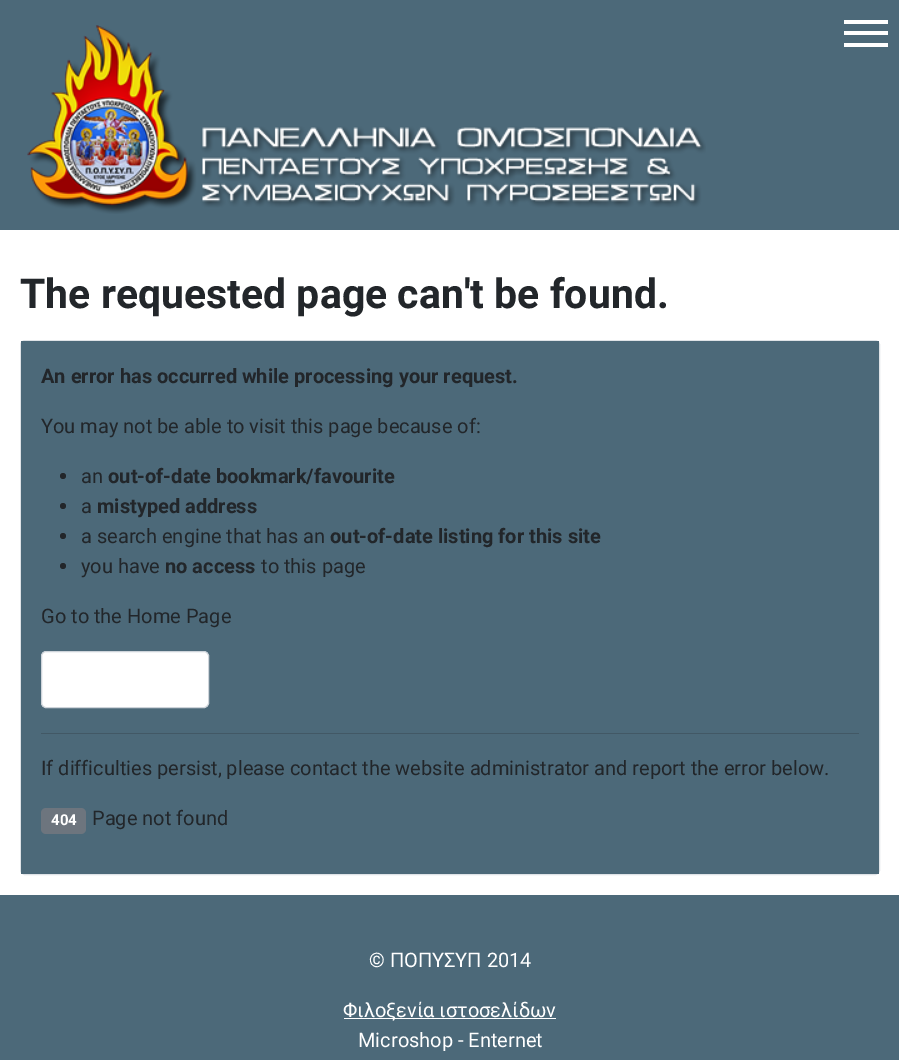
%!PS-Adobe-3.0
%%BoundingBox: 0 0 899 1060
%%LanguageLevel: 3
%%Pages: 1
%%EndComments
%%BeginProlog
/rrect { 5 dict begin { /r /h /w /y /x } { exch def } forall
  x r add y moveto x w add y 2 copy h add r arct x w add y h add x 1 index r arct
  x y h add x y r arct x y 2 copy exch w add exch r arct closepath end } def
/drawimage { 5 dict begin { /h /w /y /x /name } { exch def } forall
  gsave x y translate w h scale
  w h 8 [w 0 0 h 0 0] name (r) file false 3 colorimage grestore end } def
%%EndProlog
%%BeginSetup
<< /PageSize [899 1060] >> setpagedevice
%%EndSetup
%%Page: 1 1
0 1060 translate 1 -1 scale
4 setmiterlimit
1 setgray
0 0 899 1060 rectfill
0.298 0.412 0.475 setrgbcolor
0 0 899 230 rectfill
(images/1.raw) 27 25 679 189 drawimage
1 setgray
844 20 44 4 rectfill
844 31 44 4 rectfill
844 43 44 4 rectfill
0.875 0.89 0.906 setrgbcolor
20.5 340.5 859 534 4.5 rrect stroke
0.298 0.412 0.475 setrgbcolor
21 341 858 533 rectfill
0.133 0.149 0.165 setrgbcolor
newpath 63 476 3 0 360 arc closepath fill
newpath 63 506 3 0 360 arc closepath fill
newpath 63 536 3 0 360 arc closepath fill
newpath 63 566 3 0 360 arc closepath fill
1 setgray
41.5 651.5 167 56 4.5 rrect gsave fill grestore
0.808 0.831 0.855 setrgbcolor
stroke
0.259 0.345 0.396 setrgbcolor
41 733 818 1 rectfill
0.427 0.459 0.494 setrgbcolor
41 808 45 26 5 rrect fill
0.298 0.412 0.475 setrgbcolor
0 895 899 165 rectfill
1 setgray
344 1018 212 1 rectfill
/Roboto-Bold [41 0 0 -41 0 0] selectfont
0.133 0.149 0.165 setrgbcolor
20 308 moveto (The requested page can't be found.) show
/Roboto-Bold [20 0 0 -20 0 0] selectfont
41 383 moveto (An error has occurred while processing your request.) show
/Roboto-Regular [20 0 0 -20 0 0] selectfont
41 433 moveto (You may not be able to visit this page because of:) show
81 483 moveto (an) show
/Roboto-Bold [20 0 0 -20 0 0] selectfont
108 483 moveto (out-of-date bookmark/favourite) show
/Roboto-Regular [20 0 0 -20 0 0] selectfont
81 513 moveto (a) show
/Roboto-Bold [20 0 0 -20 0 0] selectfont
97 513 moveto (mistyped address) show
/Roboto-Regular [20 0 0 -20 0 0] selectfont
81 543 moveto (a search engine that has an) show
/Roboto-Bold [20 0 0 -20 0 0] selectfont
330 543 moveto (out-of-date listing for this site) show
/Roboto-Regular [20 0 0 -20 0 0] selectfont
81 573 moveto (you have) show
/Roboto-Bold [20 0 0 -20 0 0] selectfont
165 573 moveto (no access) show
/Roboto-Regular [20 0 0 -20 0 0] selectfont
261 573 moveto (to this page) show
41 623 moveto (Go to the Home Page) show
41 775 moveto (If difficulties persist, please contact the website administrator and report the error below.) show
/Roboto-Bold [15 0 0 -15 0 0] selectfont
1 setgray
51 825 moveto (404) show
/Roboto-Regular [20 0 0 -20 0 0] selectfont
0.133 0.149 0.165 setrgbcolor
92 825 moveto (Page not found) show
1 setgray
369 967 moveto (© ΠΟΠΥΣΥΠ 2014) show
343 1017 moveto (Φιλοξενία ιστοσελίδων) show
358 1047 moveto (Microshop - Enternet) show
showpage
%%EOF
